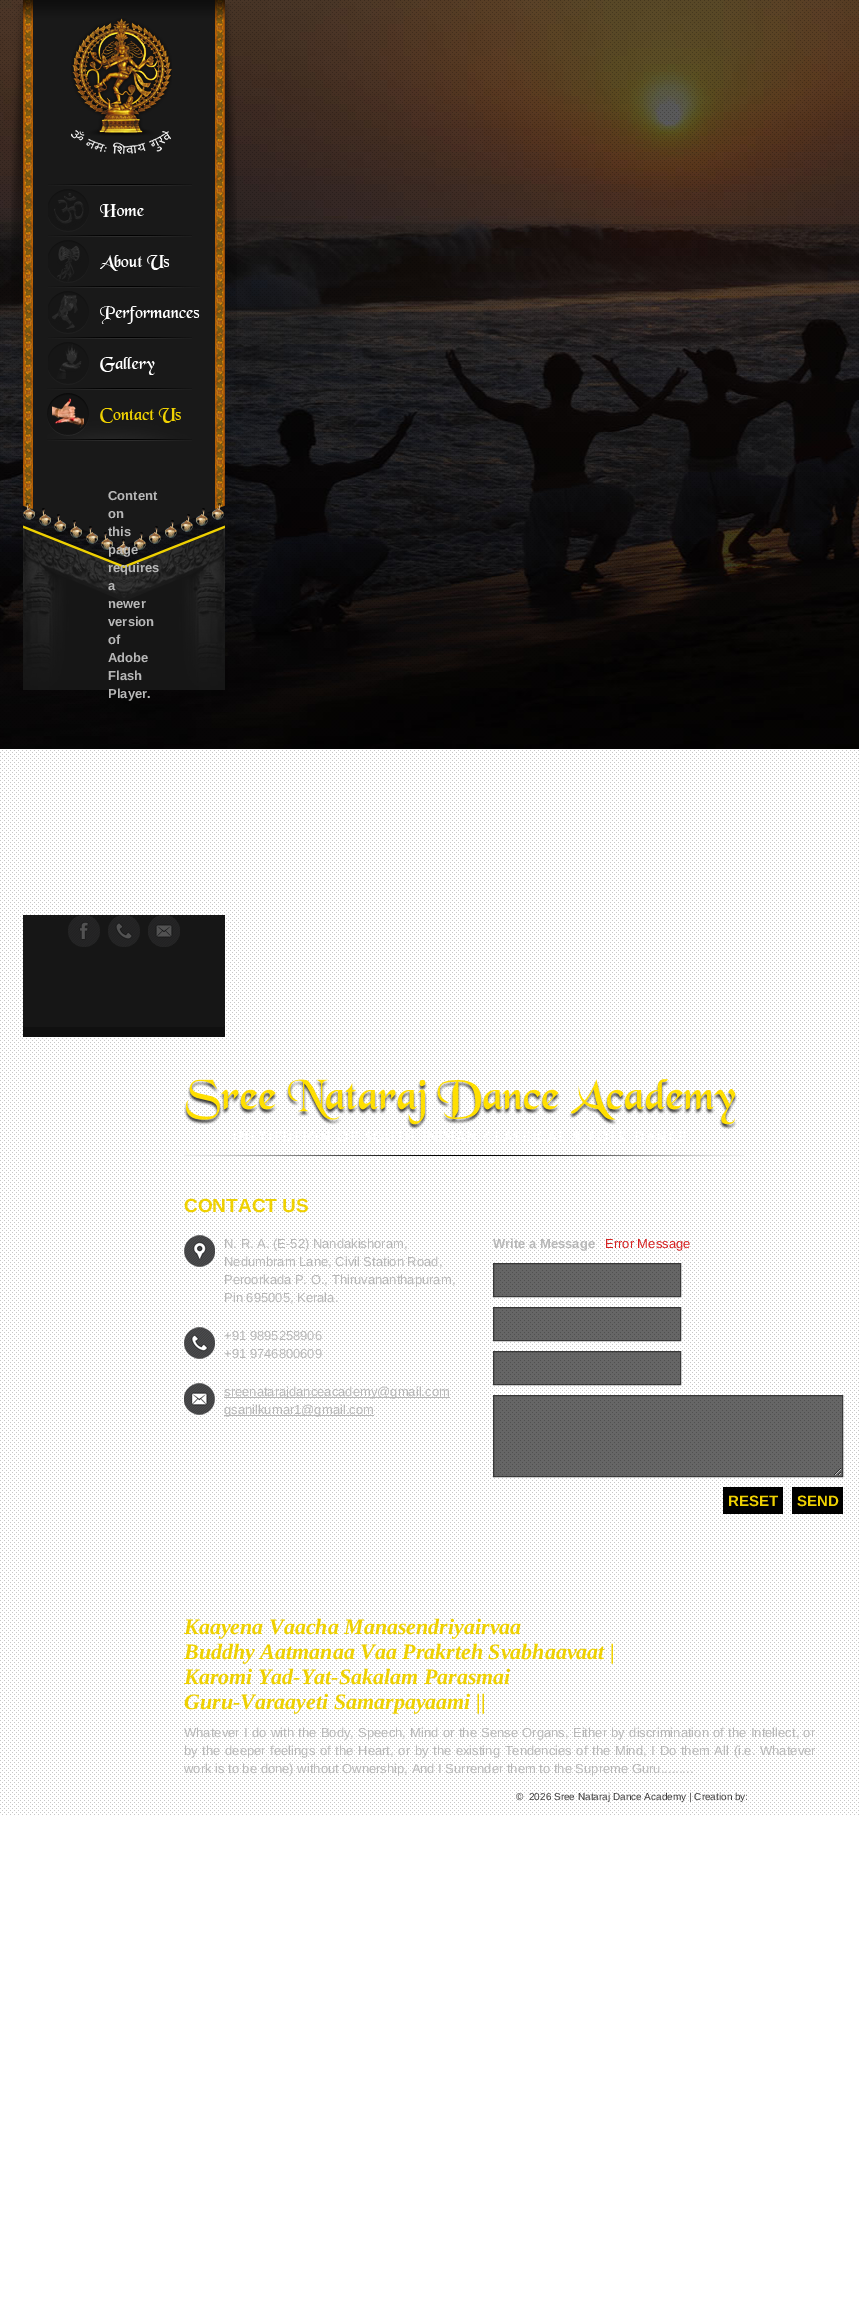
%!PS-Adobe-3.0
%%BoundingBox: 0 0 859 2298
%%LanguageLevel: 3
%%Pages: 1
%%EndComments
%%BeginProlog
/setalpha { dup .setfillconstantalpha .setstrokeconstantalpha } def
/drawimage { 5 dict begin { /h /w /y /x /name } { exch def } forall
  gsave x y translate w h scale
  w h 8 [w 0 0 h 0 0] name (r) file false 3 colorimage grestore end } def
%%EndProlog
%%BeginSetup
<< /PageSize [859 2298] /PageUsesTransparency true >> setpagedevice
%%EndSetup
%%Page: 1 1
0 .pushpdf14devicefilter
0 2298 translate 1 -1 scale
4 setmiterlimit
1 setgray
0 0 859 2298 rectfill
(images/1.raw) 0 0 859 749 drawimage
(images/2.raw) 0 0 859 1815 drawimage
(images/3.raw) 11 0 226 690 drawimage
(images/4.raw) 71 18 101 136 drawimage
(images/5.raw) 48 184 144 48 drawimage
(images/6.raw) 48 235 144 48 drawimage
(images/7.raw) 48 286 152 48 drawimage
(images/8.raw) 48 337 144 48 drawimage
(images/9.raw) 47 388 145 53 drawimage
0.086 setgray
23 915 202 112 rectfill
0.063 setgray
23 1027 202 10 rectfill
(images/10.raw) 68 915 32 32 drawimage
(images/11.raw) 108 915 32 32 drawimage
(images/12.raw) 148 915 32 32 drawimage
(images/13.raw) 184 1079 560 78 drawimage
(images/14.raw) 184 1235 31 32 drawimage
(images/15.raw) 184 1327 31 32 drawimage
(images/16.raw) 184 1383 31 32 drawimage
0.722 setgray
224 1397 226 1 rectfill
224 1415 150 1 rectfill
0.6 setalpha
0 setgray
newpath 493.5 1263.5 moveto 680.5 1263.5 lineto 680.5 1296.5 lineto 493.5 1296.5 lineto closepath fill
1 setalpha
0.224 setgray
newpath 493.5 1263.5 moveto 680.5 1263.5 lineto 680.5 1296.5 lineto 493.5 1296.5 lineto closepath stroke
0.6 setalpha
0 setgray
newpath 493.5 1307.5 moveto 680.5 1307.5 lineto 680.5 1340.5 lineto 493.5 1340.5 lineto closepath fill
1 setalpha
0.224 setgray
newpath 493.5 1307.5 moveto 680.5 1307.5 lineto 680.5 1340.5 lineto 493.5 1340.5 lineto closepath stroke
0.6 setalpha
0 setgray
newpath 493.5 1351.5 moveto 680.5 1351.5 lineto 680.5 1384.5 lineto 493.5 1384.5 lineto closepath fill
1 setalpha
0.224 setgray
newpath 493.5 1351.5 moveto 680.5 1351.5 lineto 680.5 1384.5 lineto 493.5 1384.5 lineto closepath stroke
(images/17.raw) 494 1396 348 80 drawimage
493.5 1395.5 349 81 rectstroke
0 setgray
723 1487 60 27 rectfill
792 1487 51 27 rectfill
/LiberationSans-Bold [13 0 0 -13 0 0] selectfont
0.722 setgray
108 500 moveto (Content) show
108 518 moveto (on) show
108 536 moveto (this) show
108 554 moveto (page) show
108 572 moveto (requires) show
108 590 moveto (a) show
108 608 moveto (newer) show
108 626 moveto (version) show
108 644 moveto (of) show
108 662 moveto (Adobe) show
108 680 moveto (Flash) show
108 698 moveto (Player.) show
/LiberationSans-Bold [19 0 0 -19 0 0] selectfont
0.937 0.82 0.004 setrgbcolor
184 1212 moveto (CONTACT US) show
/LiberationSans-Regular [13 0 0 -13 0 0] selectfont
0.722 setgray
224 1248 moveto (N. R. A. \(E-52\) Nandakishoram,) show
224 1266 moveto (Nedumbram Lane, Civil Station Road,) show
224 1284 moveto (Peroorkada P. O., Thiruvananthapuram,) show
224 1302 moveto (Pin 695005, Kerala.) show
224 1340 moveto (+91 9895258906) show
224 1358 moveto (+91 9746800609) show
224 1396 moveto (sreenatarajdanceacademy@gmail.com) show
224 1414 moveto (gsanilkumar1@gmail.com) show
/LiberationSans-Bold [13 0 0 -13 0 0] selectfont
493 1248 moveto (Write a Message) show
/LiberationSans-Regular [13 0 0 -13 0 0] selectfont
0.839 0.129 0.129 setrgbcolor
605 1248 moveto (Error Message) show
/LiberationSans-Bold [15 0 0 -15 0 0] selectfont
0.937 0.82 0.004 setrgbcolor
728 1506 moveto (RESET) show
797 1506 moveto (SEND) show
/LiberationSerif-BoldItalic [22 0 0 -22 0 0] selectfont
184 1634 moveto (Kaayena Vaacha Manasendriyairvaa) show
184 1659 moveto (Buddhy Aatmanaa Vaa Prakrteh Svabhaavaat |) show
184 1684 moveto (Karomi Yad-Yat-Sakalam Parasmai) show
184 1709 moveto (Guru-Varaayeti Samarpayaami ||) show
/LiberationSans-Regular [13 0 0 -13 0 0] selectfont
0.722 setgray
184 1737 moveto 0.75 0 32 (Whatever I do with the Body, Speech, Mind or the Sense Organs, Either by discrimination of the Intellect, or) widthshow
184 1755 moveto 1.1 0 32 (by the deeper feelings of the Heart, or by the existing Tendencies of the Mind, I Do them All \(i.e. Whatever) widthshow
184 1773 moveto (work is to be done\) without Ownership, And I Surrender them to the Supreme Guru.........) show
/LiberationSans-Regular [10 0 0 -10 0 0] selectfont
0.227 0.224 0.224 setrgbcolor
516 1800 moveto (©  2026 Sree Nataraj Dance Academy | Creation by:) show
.poppdf14devicefilter showpage
%%EOF
